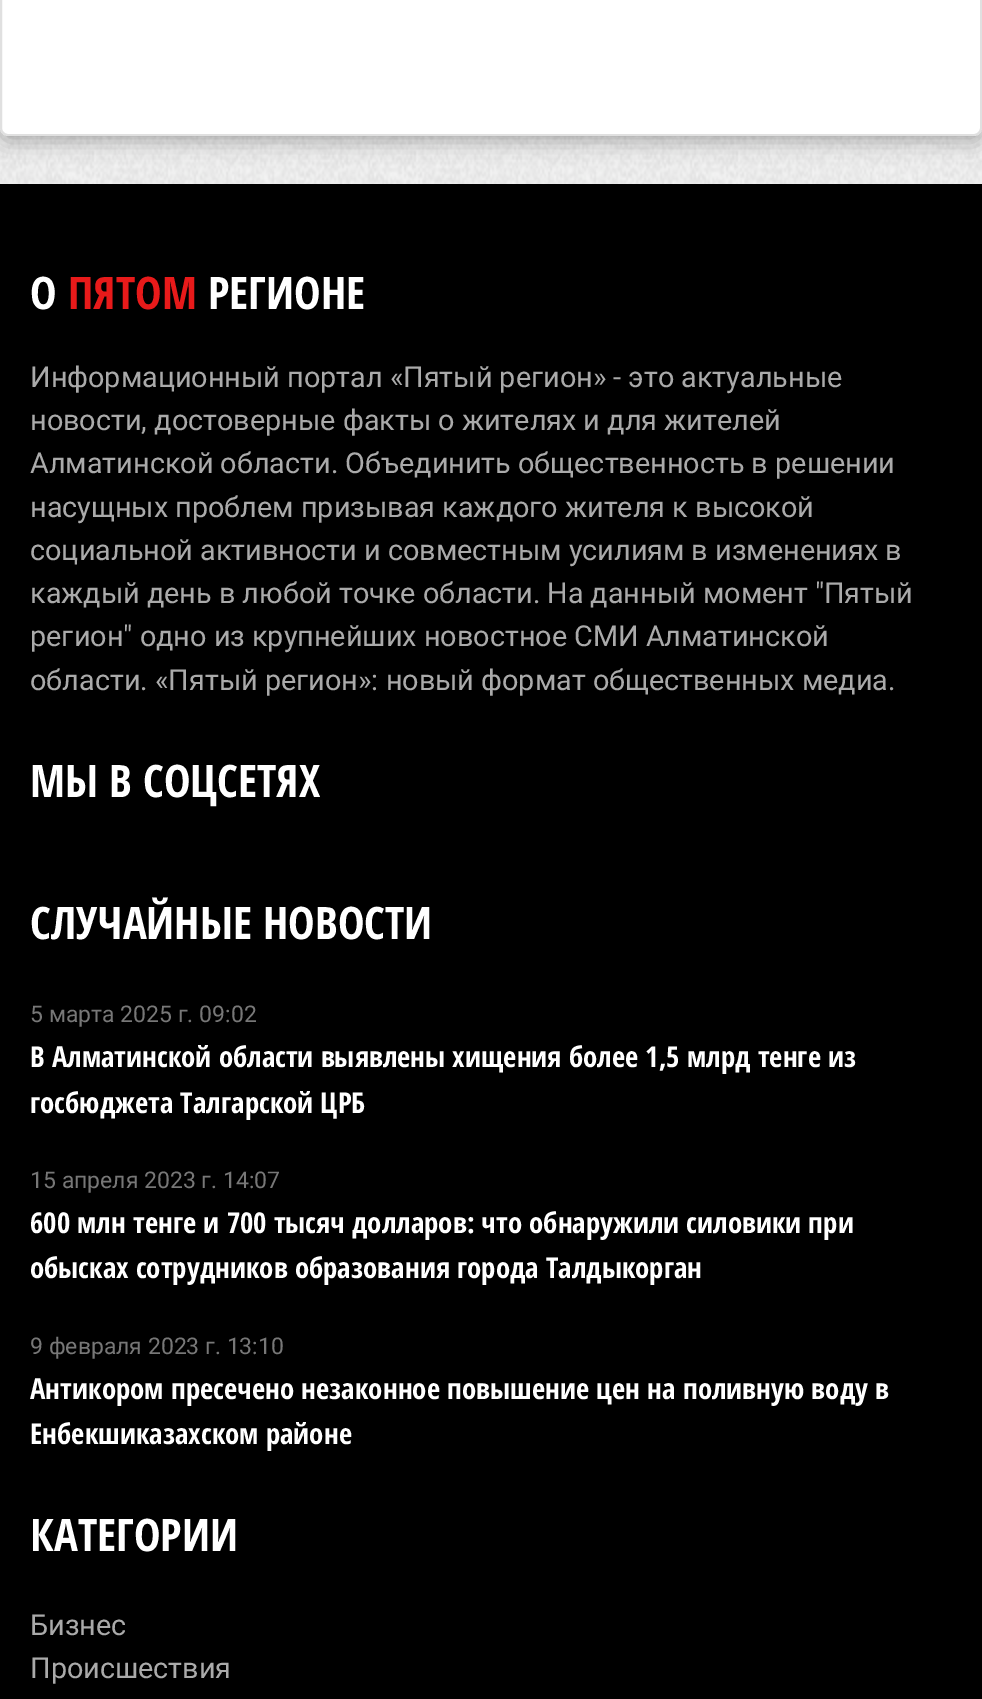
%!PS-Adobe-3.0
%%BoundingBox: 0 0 982 1699
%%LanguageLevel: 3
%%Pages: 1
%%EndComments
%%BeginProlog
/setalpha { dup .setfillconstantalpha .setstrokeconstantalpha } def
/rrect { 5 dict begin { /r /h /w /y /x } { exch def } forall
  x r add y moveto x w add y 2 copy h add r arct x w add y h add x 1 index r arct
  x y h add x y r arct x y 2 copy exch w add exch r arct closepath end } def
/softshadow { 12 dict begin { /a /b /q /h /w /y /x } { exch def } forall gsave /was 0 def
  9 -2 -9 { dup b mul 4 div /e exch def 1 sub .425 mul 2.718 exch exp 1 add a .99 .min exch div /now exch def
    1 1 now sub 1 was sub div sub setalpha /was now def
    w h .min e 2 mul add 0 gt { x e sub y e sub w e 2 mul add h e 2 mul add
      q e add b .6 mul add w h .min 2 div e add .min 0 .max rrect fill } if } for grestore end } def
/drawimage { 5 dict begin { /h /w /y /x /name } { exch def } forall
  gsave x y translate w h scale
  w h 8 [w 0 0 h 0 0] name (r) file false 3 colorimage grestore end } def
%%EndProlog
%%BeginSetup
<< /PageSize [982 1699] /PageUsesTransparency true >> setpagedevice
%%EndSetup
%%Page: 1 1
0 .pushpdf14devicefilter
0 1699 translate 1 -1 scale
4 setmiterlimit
1 setgray
0 0 982 1699 rectfill
(images/1.raw) 0 128 982 56 drawimage
0 setgray
0 -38 982 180 8 10 0.25 softshadow
1 setgray
0 -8 982 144 8 rrect fill
0.12 setalpha
0 setgray
2 setlinewidth
1 -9 980 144 7 rrect stroke
1 setalpha
0 184 982 1515 rectfill
/OpenSansCondensed-Bold [44.75 0 0 -44.75 0 0] selectfont
1 setgray
30 309 moveto (О) show
0.91 0.102 0.102 setrgbcolor
68 309 moveto (ПЯТОМ) show
1 setgray
208 309 moveto (РЕГИОНЕ) show
/Roboto-Regular [28.8 0 0 -28.8 0 0] selectfont
0.667 setgray
30 387 moveto (Информационный портал «Пятый регион» - это актуальные) show
30 430 moveto (новости, достоверные факты о жителях и для жителей) show
30 473 moveto (Алматинской области. Объединить общественность в решении) show
30 517 moveto (насущных проблем призывая каждого жителя к высокой) show
30 560 moveto (социальной активности и совместным усилиям в изменениях в) show
30 603 moveto (каждый день в любой точке области.) show
547 603 moveto (На данный момент "Пятый) show
30 646 moveto (регион" одно из крупнейших новостное СМИ Алматинской) show
30 690 moveto (области. «Пятый регион»: новый формат общественных медиа.) show
/OpenSansCondensed-Bold [44.75 0 0 -44.75 0 0] selectfont
1 setgray
30 797 moveto (МЫ В СОЦСЕТЯХ) show
30 939 moveto (СЛУЧАЙНЫЕ НОВОСТИ) show
/Roboto-Regular [23 0 0 -23 0 0] selectfont
0.467 setgray
30 1022 moveto (5 марта 2025 г. 09:02) show
/OpenSansCondensed-Bold [28.8 0 0 -28.8 0 0] selectfont
1 setgray
30 1067 moveto (В Алматинской области выявлены хищения более 1,5 млрд тенге из) show
30 1113 moveto (госбюджета Талгарской ЦРБ) show
/Roboto-Regular [23 0 0 -23 0 0] selectfont
0.467 setgray
30 1188 moveto (15 апреля 2023 г. 14:07) show
/OpenSansCondensed-Bold [28.8 0 0 -28.8 0 0] selectfont
1 setgray
30 1233 moveto (600 млн тенге и 700 тысяч долларов: что обнаружили силовики при) show
30 1278 moveto (обысках сотрудников образования города Талдыкорган) show
/Roboto-Regular [23 0 0 -23 0 0] selectfont
0.467 setgray
30 1354 moveto (9 февраля 2023 г. 13:10) show
/OpenSansCondensed-Bold [28.8 0 0 -28.8 0 0] selectfont
1 setgray
30 1399 moveto (Антикором пресечено незаконное повышение цен на поливную воду в) show
30 1444 moveto (Енбекшиказахском районе) show
/OpenSansCondensed-Bold [44.75 0 0 -44.75 0 0] selectfont
30 1551 moveto (КАТЕГОРИИ) show
/Roboto-Regular [28.8 0 0 -28.8 0 0] selectfont
0.667 setgray
30 1635 moveto (Бизнес) show
30 1678 moveto (Происшествия) show
.poppdf14devicefilter showpage
%%EOF
